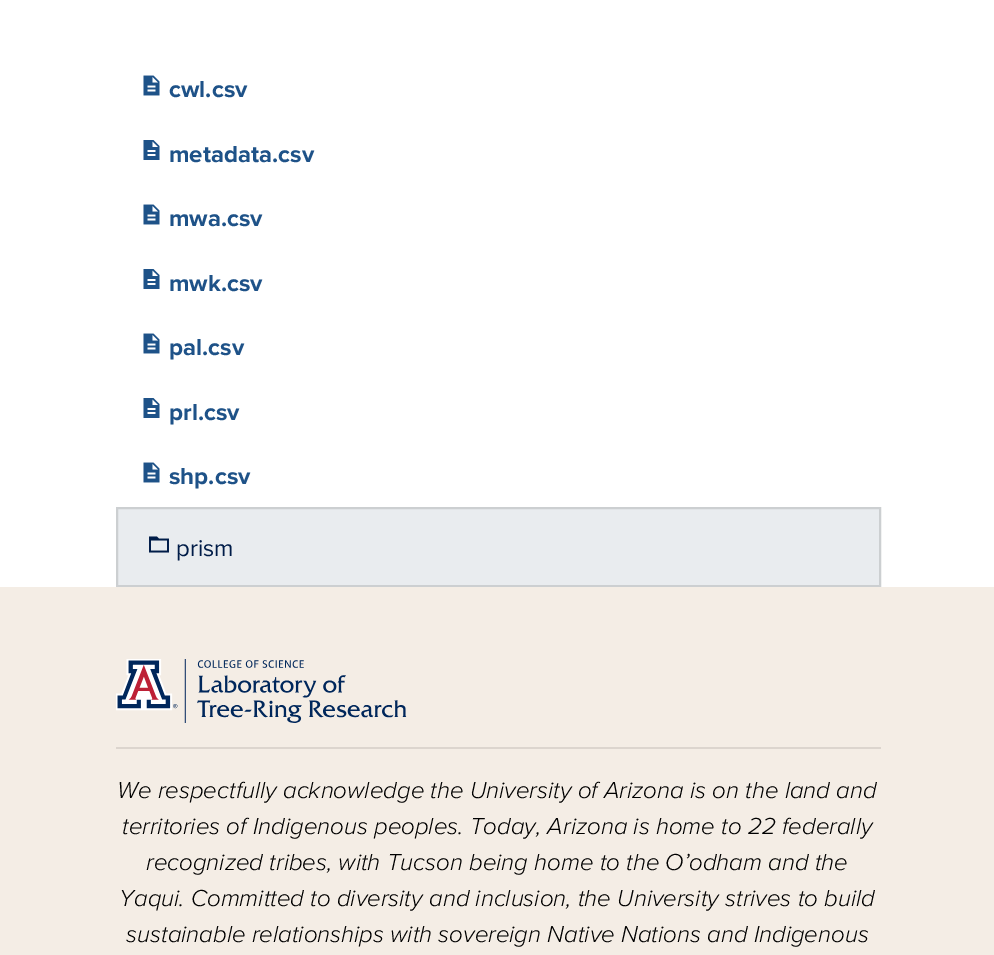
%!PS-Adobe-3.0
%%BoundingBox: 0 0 994 955
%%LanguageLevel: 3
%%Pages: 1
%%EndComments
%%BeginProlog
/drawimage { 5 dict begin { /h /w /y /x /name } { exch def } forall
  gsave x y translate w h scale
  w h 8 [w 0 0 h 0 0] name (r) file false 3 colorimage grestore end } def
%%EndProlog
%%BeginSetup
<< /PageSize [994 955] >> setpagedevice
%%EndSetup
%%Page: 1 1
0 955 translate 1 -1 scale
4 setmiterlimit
1 setgray
0 0 994 955 rectfill
(images/1.raw) 143 75 17 21 drawimage
(images/2.raw) 143 140 17 20 drawimage
(images/1.raw) 143 204 17 21 drawimage
(images/2.raw) 143 269 17 20 drawimage
(images/1.raw) 143 333 17 21 drawimage
(images/2.raw) 143 398 17 20 drawimage
(images/1.raw) 143 462 17 21 drawimage
0.914 0.925 0.937 setrgbcolor
newpath 117 508 moveto 880 508 lineto 880 586 lineto 117 586 lineto closepath gsave fill grestore
0.8 0.812 0.82 setrgbcolor
2 setlinewidth
stroke
(images/3.raw) 149 536 20 17 drawimage
0.957 0.929 0.898 setrgbcolor
0 587 994 368 rectfill
(images/4.raw) 116 659 291 64 drawimage
0.863 0.835 0.808 setrgbcolor
116 747 765 2 rectfill
/ProximaNova-Bold [24 0 0 -24 0 0] selectfont
0.118 0.322 0.533 setrgbcolor
169 97 moveto (cwl.csv) show
169 162 moveto (metadata.csv) show
169 226 moveto (mwa.csv) show
169 291 moveto (mwk.csv) show
169 355 moveto (pal.csv) show
169 420 moveto (prl.csv) show
169 484 moveto (shp.csv) show
/ProximaNova-Regular [24 0 0 -24 0 0] selectfont
0 0.11 0.282 setrgbcolor
176 556 moveto (prism) show
/ProximaNova-LightItalic [24 0 0 -24 0 0] selectfont
0 setgray
117 798 moveto (We respectfully acknowledge the University of Arizona is on the land and) show
122 834 moveto (territories of Indigenous peoples. Today, Arizona is home to 22 federally) show
146 870 moveto (recognized tribes, with Tucson being home to the O’odham and the) show
119 906 moveto (Yaqui. Committed to diversity and inclusion, the University strives to build) show
126 942 moveto (sustainable relationships with sovereign Native Nations and Indigenous) show
showpage
%%EOF
